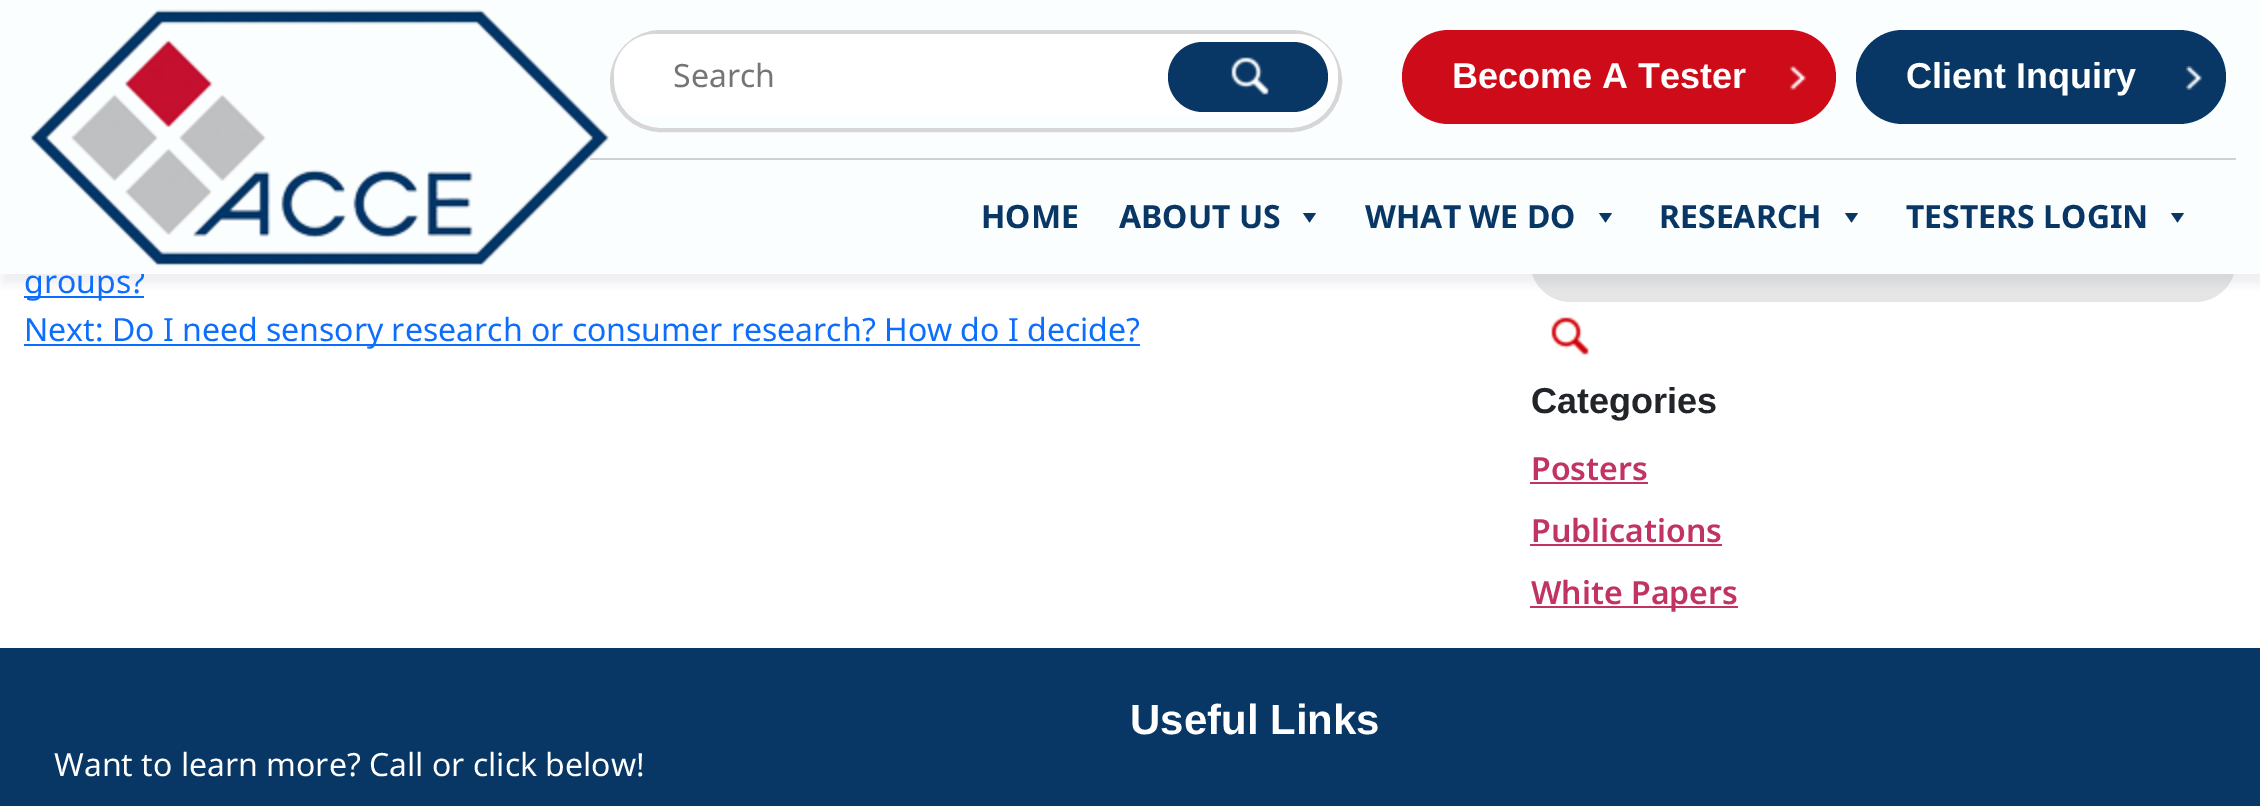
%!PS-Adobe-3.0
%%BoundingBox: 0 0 2260 806
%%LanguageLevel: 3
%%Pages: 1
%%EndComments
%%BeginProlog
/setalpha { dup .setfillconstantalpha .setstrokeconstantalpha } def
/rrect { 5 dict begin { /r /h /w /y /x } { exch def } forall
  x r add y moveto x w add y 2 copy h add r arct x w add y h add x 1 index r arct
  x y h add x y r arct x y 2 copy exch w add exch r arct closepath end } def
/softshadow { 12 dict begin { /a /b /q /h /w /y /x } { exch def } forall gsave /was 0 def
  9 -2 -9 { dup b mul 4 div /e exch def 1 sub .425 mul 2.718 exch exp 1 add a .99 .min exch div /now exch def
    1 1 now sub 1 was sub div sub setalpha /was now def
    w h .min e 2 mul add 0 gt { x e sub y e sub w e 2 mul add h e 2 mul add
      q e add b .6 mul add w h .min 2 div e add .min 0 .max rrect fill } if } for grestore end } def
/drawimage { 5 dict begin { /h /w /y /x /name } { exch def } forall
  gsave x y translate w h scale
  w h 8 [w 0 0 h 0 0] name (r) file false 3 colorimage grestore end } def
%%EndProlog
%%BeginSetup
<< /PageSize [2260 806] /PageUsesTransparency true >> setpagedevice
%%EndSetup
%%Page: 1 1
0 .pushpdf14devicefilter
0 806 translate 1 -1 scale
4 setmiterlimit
1 setgray
0 0 2260 806 rectfill
0.051 0.431 0.992 setrgbcolor
24 296 120 2 rectfill
0.898 setgray
1530 220 706 82 41 rrect fill
0.596 0.612 0.639 setrgbcolor
2 10 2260 274 0 5 0.17 softshadow
0.051 0.431 0.992 setrgbcolor
24 344 1116 2 rectfill
(images/5.raw) 1551 317 38 38 drawimage
0.757 0.2 0.388 setrgbcolor
1530 482 118 2 rectfill
1530 544 192 2 rectfill
1530 606 208 2 rectfill
0.031 0.216 0.396 setrgbcolor
0 648 2260 158 rectfill
/NotoSans-Regular [32 0 0 -32 0 0] selectfont
0.051 0.431 0.992 setrgbcolor
24 293 moveto (groups?) show
0.984 0.996 0.996 setrgbcolor
0 0 2260 274 rectfill
0.031 0.216 0.396 setrgbcolor
newpath 2184 213 moveto 2177.5 222.5 lineto 2171 213 lineto closepath fill
/NotoSans-Bold [32 0 0 -32 0 0] selectfont
1906 228 moveto (TESTERS LOGIN) show
newpath 1858 213 moveto 1851.5 222.5 lineto 1845 213 lineto closepath fill
1659 228 moveto (RESEARCH) show
newpath 1612 213 moveto 1605.5 222.5 lineto 1599 213 lineto closepath fill
1365 228 moveto (WHAT WE DO) show
newpath 1316 213 moveto 1309.5 222.5 lineto 1303 213 lineto closepath fill
1119 228 moveto (ABOUT US) show
981 228 moveto (HOME) show
0.839 setgray
4 setlinewidth
612 32 728 98 49 rrect stroke
1 setgray
614 34 724 82 41 rrect fill
0.031 0.216 0.396 setrgbcolor
1168 42 160 70 35 rrect fill
(images/2.raw) 1231 57 38 38 drawimage
/NotoSans-Regular [32 0 0 -32 0 0] selectfont
0.459 setgray
673 87 moveto (Search) show
0.031 0.216 0.396 setrgbcolor
1856 30 370 94 47 rrect fill
/LiberationSans-Bold [36 0 0 -36 0 0] selectfont
1 setgray
1906 88 moveto (Client Inquiry) show
(images/4.raw) 2186 66 16 24 drawimage
0.808 0.043 0.098 setrgbcolor
1402 30 434 94 47 rrect fill
1 setgray
1452 88 moveto (Become A Tester) show
(images/3.raw) 1790 66 16 24 drawimage
(images/1.raw) 29 9 580 258 drawimage
0.816 0.82 0.824 setrgbcolor
590 158 1646 2 rectfill
/NotoSans-Regular [32 0 0 -32 0 0] selectfont
0.051 0.431 0.992 setrgbcolor
24 341 moveto (Next: Do I need sensory research or consumer research? How do I decide?) show
/LiberationSans-Bold [36 0 0 -36 0 0] selectfont
0.129 0.145 0.161 setrgbcolor
1531 413 moveto (Categories) show
/NotoSans-SemiBold [32 0 0 -32 0 0] selectfont
0.757 0.2 0.388 setrgbcolor
1531 480 moveto (Posters) show
1531 542 moveto (Publications) show
1531 604 moveto (White Papers) show
/LiberationSans-Bold [42 0 0 -42 0 0] selectfont
1 setgray
1130 734 moveto (Useful Links) show
/NotoSans-Regular [32 0 0 -32 0 0] selectfont
54 776 moveto (Want to learn more? Call or click below!) show
.poppdf14devicefilter showpage
%%EOF
